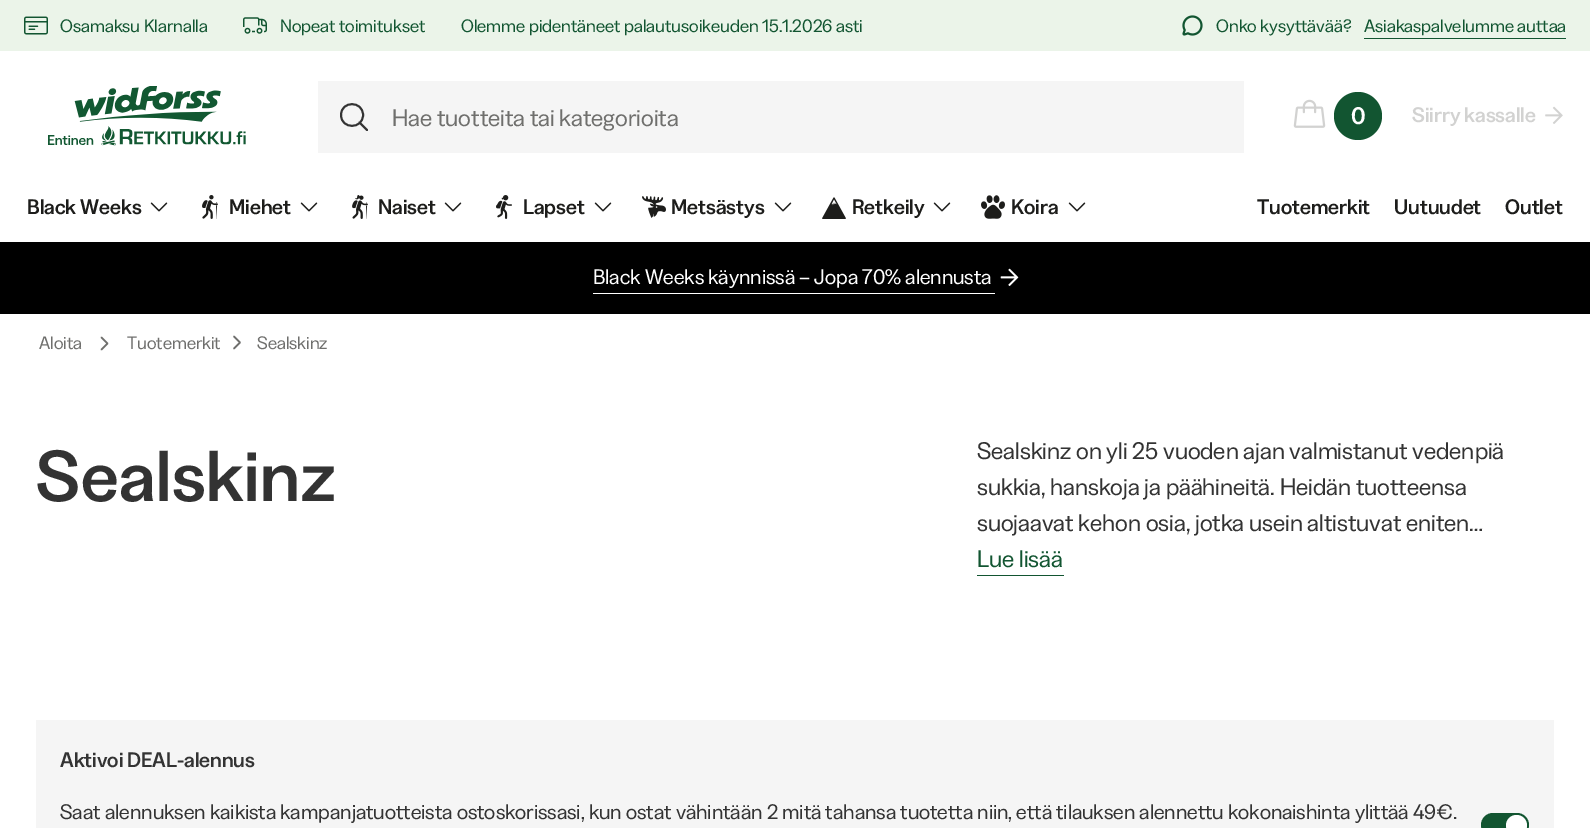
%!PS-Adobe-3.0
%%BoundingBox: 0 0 1590 828
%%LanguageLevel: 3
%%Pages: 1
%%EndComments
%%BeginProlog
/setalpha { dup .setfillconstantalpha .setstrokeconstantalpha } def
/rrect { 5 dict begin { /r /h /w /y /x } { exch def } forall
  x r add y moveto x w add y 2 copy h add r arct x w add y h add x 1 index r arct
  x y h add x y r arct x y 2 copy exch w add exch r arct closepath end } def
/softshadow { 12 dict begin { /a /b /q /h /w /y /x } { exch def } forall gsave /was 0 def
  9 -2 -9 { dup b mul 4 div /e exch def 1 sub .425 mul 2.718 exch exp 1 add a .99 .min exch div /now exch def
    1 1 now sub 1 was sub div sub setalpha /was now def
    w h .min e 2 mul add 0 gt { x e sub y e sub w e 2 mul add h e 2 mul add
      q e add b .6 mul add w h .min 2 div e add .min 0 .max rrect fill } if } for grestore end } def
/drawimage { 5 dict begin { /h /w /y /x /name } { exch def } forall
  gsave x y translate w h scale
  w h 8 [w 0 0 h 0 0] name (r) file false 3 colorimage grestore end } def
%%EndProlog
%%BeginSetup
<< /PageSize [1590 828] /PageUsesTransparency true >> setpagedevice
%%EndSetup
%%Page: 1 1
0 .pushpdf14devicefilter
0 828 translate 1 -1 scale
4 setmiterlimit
1 setgray
0 0 1590 828 rectfill
0 setgray
0 242 1590 72 rectfill
(images/14.raw) 1000 268 19 18 drawimage
-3 48 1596 197 0 7.5 0.1 softshadow
0.922 0.957 0.914 setrgbcolor
0 0 1590 51 rectfill
(images/1.raw) 24 16 24 19 drawimage
(images/2.raw) 243 17 24 17 drawimage
(images/3.raw) 1182 15 21 21 drawimage
0.071 0.333 0.192 setrgbcolor
1364 38 202 1 rectfill
1 setgray
0 51 1590 191 rectfill
(images/4.raw) 48 86 198 60 drawimage
0.961 setgray
318 81 926 72 rectfill
0.2 setgray
1.9 setlinewidth
1 setlinecap
1 setlinejoin
newpath 367 130 moveto 359.5 122.5 lineto 363 115 moveto 363 129.5 341 129.5 341 115 curveto 341 100.5 363 100.5 363 115 curveto stroke
(images/5.raw) 1293 99 33 29 drawimage
0.071 0.333 0.192 setrgbcolor
newpath 1358 116 24 0 360 arc closepath fill
(images/6.raw) 1545 106 18 18 drawimage
(images/7.raw) 150 202 18 10 drawimage
(images/8.raw) 202 195 16 24 drawimage
(images/7.raw) 300 202 18 10 drawimage
(images/9.raw) 352 195 16 24 drawimage
(images/7.raw) 444 202 18 10 drawimage
(images/10.raw) 496 195 16 24 drawimage
(images/7.raw) 594 202 18 10 drawimage
(images/11.raw) 642 196 24 22 drawimage
(images/7.raw) 774 202 18 10 drawimage
(images/12.raw) 822 197 24 22 drawimage
(images/7.raw) 933 202 18 10 drawimage
(images/13.raw) 981 195 24 24 drawimage
(images/7.raw) 1068 202 18 10 drawimage
1 setgray
593 293 402 1 rectfill
0.435 0.435 0.427 setrgbcolor
1.5 setlinewidth
newpath 101.5 349.5 moveto 107.5 343.5 lineto 101.5 337.5 lineto stroke
newpath 234 348.5 moveto 240 342.5 lineto 234 336.5 lineto stroke
0.071 0.333 0.192 setrgbcolor
977 575 87 1 rectfill
0.961 setgray
36 720 1518 108 rectfill
0.071 0.333 0.192 setrgbcolor
1481 813 48 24 12 rrect fill
1 setgray
newpath 1516.5 825.5 10.5 0 360 arc closepath fill
/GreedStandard-Regular [18 0 0 -18 0 0] selectfont
0.071 0.333 0.192 setrgbcolor
60 32 moveto (Osamaksu Klarnalla) show
280 32 moveto (Nopeat toimitukset) show
461 32 moveto (Olemme pidentäneet palautusoikeuden 15.1.2026 asti) show
1216 32 moveto (Onko kysyttävää?) show
1364 32 moveto (Asiakaspalvelumme auttaa) show
/GreedStandard-Regular [24 0 0 -24 0 0] selectfont
0.435 0.435 0.427 setrgbcolor
392 126 moveto (Hae tuotteita tai kategorioita) show
/GreedStandard-Medium [24 0 0 -24 0 0] selectfont
1 setgray
1351 124 moveto (0) show
/GreedStandard-Medium [21 0 0 -21 0 0] selectfont
0.824 0.824 0.82 setrgbcolor
1412 122 moveto (Siirry kassalle) show
0.114 0.114 0.106 setrgbcolor
27 214 moveto (Black Weeks) show
229 214 moveto (Miehet) show
378 214 moveto (Naiset) show
523 214 moveto (Lapset) show
671 214 moveto (Metsästys) show
852 214 moveto (Retkeily) show
1011 214 moveto (Koira) show
1257 214 moveto (Tuotemerkit) show
1394 214 moveto (Uutuudet) show
1505 214 moveto (Outlet) show
/GreedStandard-Regular [21 0 0 -21 0 0] selectfont
1 setgray
593 284 moveto (Black Weeks käynnissä – Jopa 70% alennusta) show
/GreedStandard-Regular [18 0 0 -18 0 0] selectfont
0.435 0.435 0.427 setrgbcolor
39 349 moveto (Aloita) show
127 349 moveto (Tuotemerkit) show
257 349 moveto (Sealskinz) show
/GreedStandard-Medium [72 0 0 -72 0 0] selectfont
0.2 setgray
36 501 moveto 0.75 0 (Sealskinz) ashow
/GreedStandard-Regular [24 0 0 -24 0 0] selectfont
977 459 moveto (Sealskinz on yli 25 vuoden ajan valmistanut vedenpiä) show
977 495 moveto (sukkia, hanskoja ja päähineitä. Heidän tuotteensa) show
977 531 moveto (suojaavat kehon osia, jotka usein altistuvat eniten…) show
0.071 0.333 0.192 setrgbcolor
977 567 moveto (Lue lisää) show
/GreedStandard-Medium [21 0 0 -21 0 0] selectfont
0.2 setgray
60 767 moveto (Aktivoi DEAL-alennus) show
/GreedStandard-Regular [21 0 0 -21 0 0] selectfont
60 819 moveto (Saat alennuksen kaikista kampanjatuotteista ostoskorissasi, kun ostat vähintään 2 mitä tahansa tuotetta niin, että tilauksen alennettu kokonaishinta ylittää 49€.) show
.poppdf14devicefilter showpage
%%EOF
